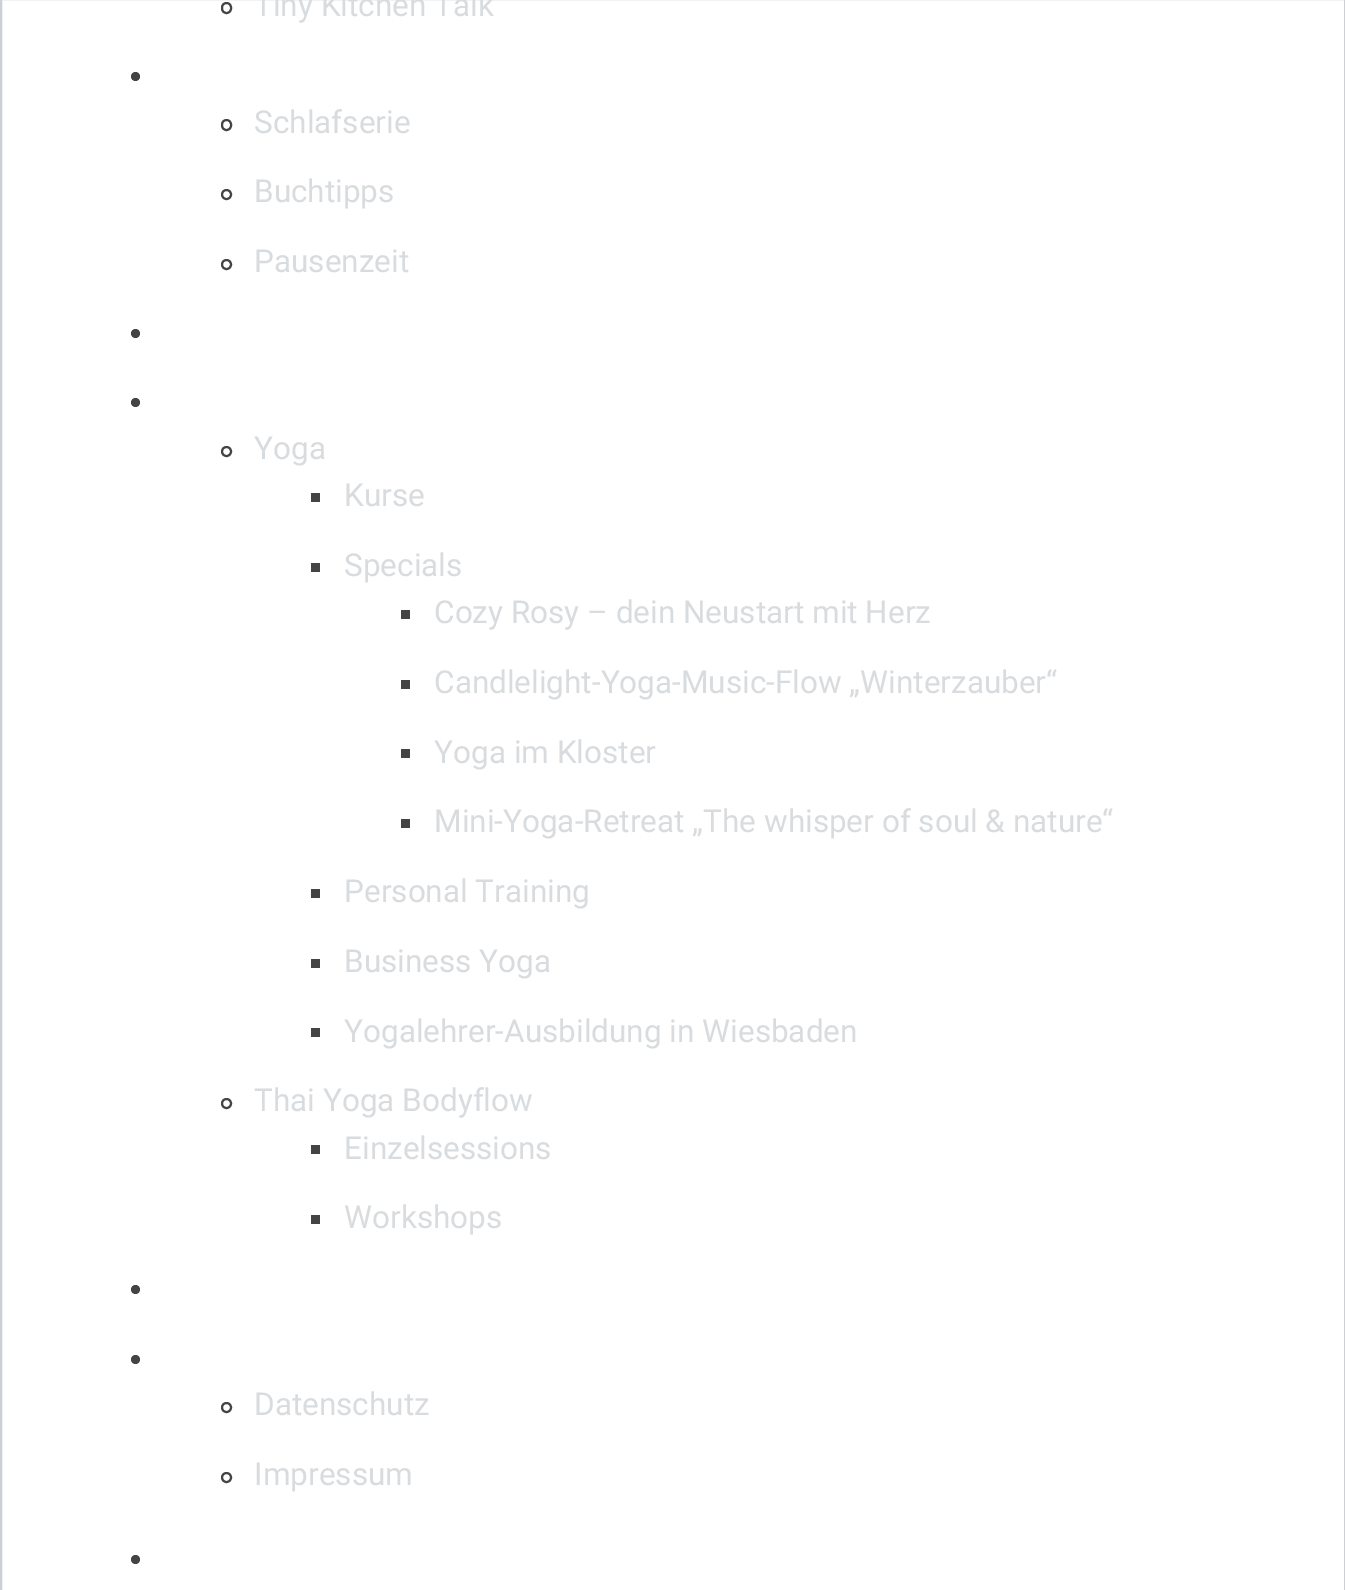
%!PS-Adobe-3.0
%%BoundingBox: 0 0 1345 1590
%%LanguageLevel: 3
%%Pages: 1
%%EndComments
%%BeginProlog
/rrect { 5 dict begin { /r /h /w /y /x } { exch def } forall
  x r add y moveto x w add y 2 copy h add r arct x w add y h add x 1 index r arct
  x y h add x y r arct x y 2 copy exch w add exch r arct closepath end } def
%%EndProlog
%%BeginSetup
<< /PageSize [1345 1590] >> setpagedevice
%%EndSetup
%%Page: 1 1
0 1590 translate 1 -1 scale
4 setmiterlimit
1 setgray
0 0 1345 1590 rectfill
0.8 0.816 0.831 setrgbcolor
2 setlinewidth
1 -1 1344 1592 rectstroke
0.267 setgray
222 3 9 10 4.5 rrect stroke
newpath 135.5 76.5 4.5 0 360 arc closepath fill
222 120 9 10 4.5 rrect stroke
newpath 226.5 194.5 4.5 0 360 arc closepath stroke
newpath 226.5 264.5 4.5 0 360 arc closepath stroke
newpath 135.5 333.5 4.5 0 360 arc closepath fill
newpath 135.5 402.5 4.5 0 360 arc closepath fill
newpath 226.5 451.5 4.5 0 360 arc closepath stroke
311 493 9 9 rectfill
311 563 9 9 rectfill
401 610 9 9 rectfill
401 680 9 9 rectfill
401 749 9 9 rectfill
401 819 9 9 rectfill
311 889 9 9 rectfill
311 959 9 9 rectfill
311 1028 9 9 rectfill
newpath 226.5 1103.5 4.5 0 360 arc closepath stroke
311 1145 9 9 rectfill
311 1215 9 9 rectfill
newpath 135.5 1289.5 4.5 0 360 arc closepath fill
newpath 135.5 1359.5 4.5 0 360 arc closepath fill
newpath 226.5 1407.5 4.5 0 360 arc closepath stroke
newpath 226.5 1477.5 4.5 0 360 arc closepath stroke
newpath 135.5 1559.5 4.5 0 360 arc closepath fill
/Roboto-Regular [31.5 0 0 -31.5 0 0] selectfont
0.851 0.863 0.875 setrgbcolor
254 16 moveto (Tiny Kitchen Talk) show
254 133 moveto (Schlafserie) show
254 202 moveto (Buchtipps) show
254 272 moveto (Pausenzeit) show
254 459 moveto (Yoga) show
344 506 moveto (Kurse) show
344 576 moveto (Specials) show
434 623 moveto (Cozy Rosy – dein Neustart mit Herz) show
434 693 moveto (Candlelight-Yoga-Music-Flow „Winterzauber“) show
434 763 moveto (Yoga im Kloster) show
434 832 moveto (Mini-Yoga-Retreat „The whisper of soul & nature“) show
344 902 moveto (Personal Training) show
344 972 moveto (Business Yoga) show
344 1042 moveto (Yogalehrer-Ausbildung in Wiesbaden) show
254 1111 moveto (Thai Yoga Bodyflow) show
344 1159 moveto (Einzelsessions) show
344 1228 moveto (Workshops) show
254 1415 moveto (Datenschutz) show
254 1485 moveto (Impressum) show
showpage
%%EOF
